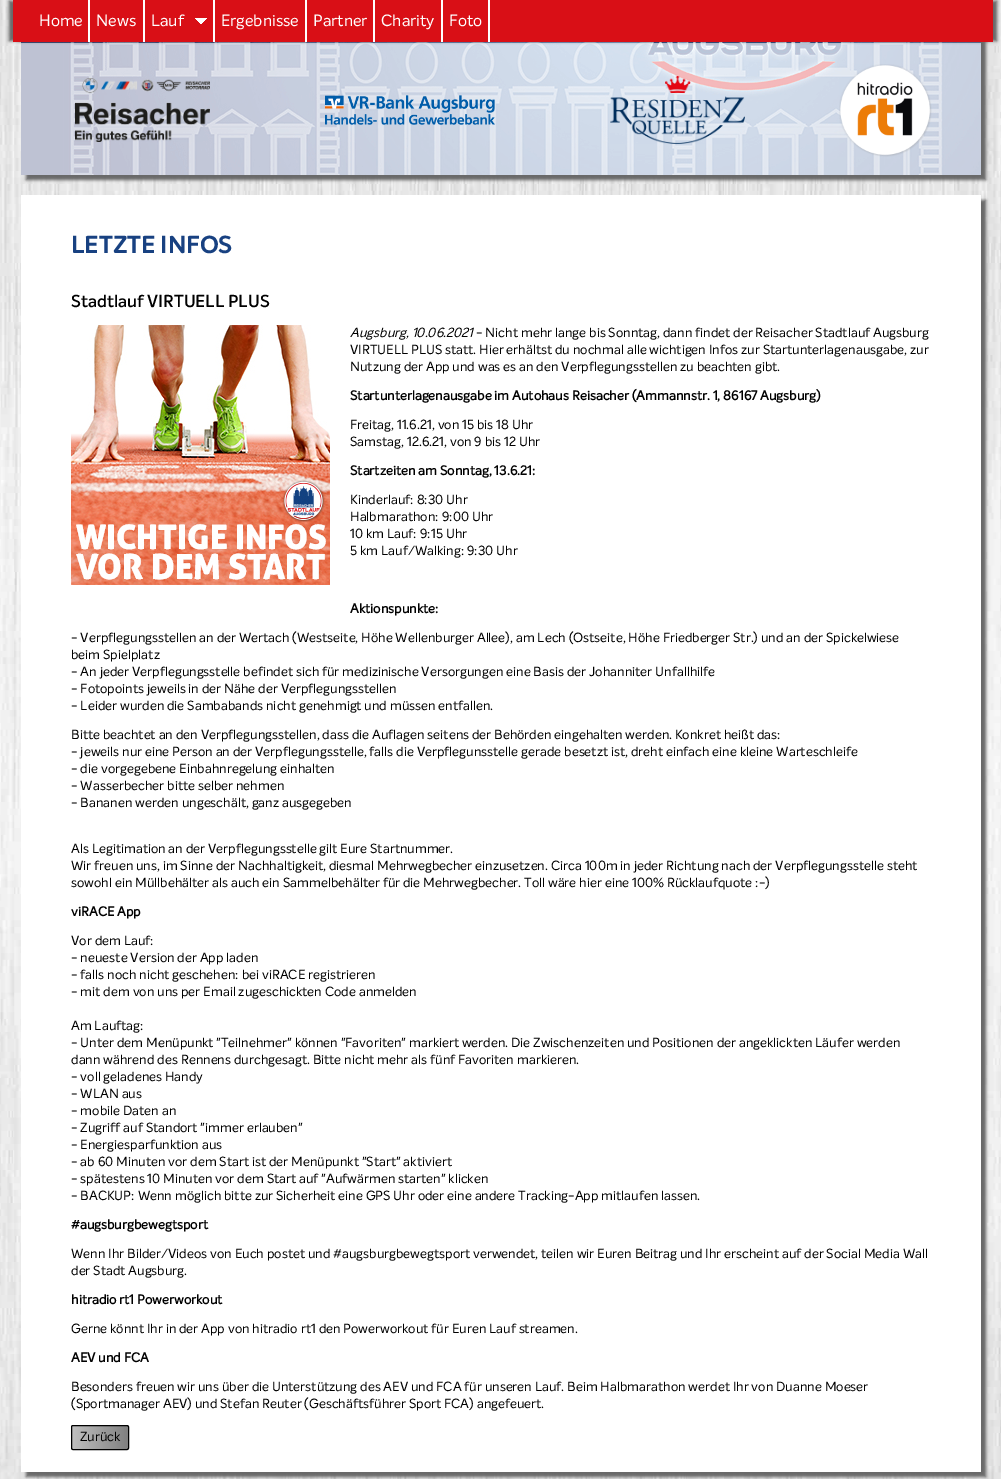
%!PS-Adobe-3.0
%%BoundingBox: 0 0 1001 1479
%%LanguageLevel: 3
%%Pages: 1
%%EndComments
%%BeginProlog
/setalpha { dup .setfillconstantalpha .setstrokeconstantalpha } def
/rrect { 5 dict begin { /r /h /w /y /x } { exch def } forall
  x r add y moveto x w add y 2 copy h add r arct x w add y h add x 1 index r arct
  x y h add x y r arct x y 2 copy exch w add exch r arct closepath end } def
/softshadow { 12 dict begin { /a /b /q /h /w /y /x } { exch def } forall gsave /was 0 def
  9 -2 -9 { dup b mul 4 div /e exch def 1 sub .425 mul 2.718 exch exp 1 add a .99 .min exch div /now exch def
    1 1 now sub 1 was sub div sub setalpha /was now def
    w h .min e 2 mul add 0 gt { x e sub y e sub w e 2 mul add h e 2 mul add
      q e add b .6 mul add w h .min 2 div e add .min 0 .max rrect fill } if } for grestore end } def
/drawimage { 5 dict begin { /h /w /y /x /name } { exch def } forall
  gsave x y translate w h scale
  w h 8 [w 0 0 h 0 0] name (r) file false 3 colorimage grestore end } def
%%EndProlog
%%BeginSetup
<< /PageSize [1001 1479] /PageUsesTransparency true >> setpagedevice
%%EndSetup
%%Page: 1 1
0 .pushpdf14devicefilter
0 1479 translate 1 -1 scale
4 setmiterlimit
1 setgray
0 0 1001 1479 rectfill
(images/1.raw) 0 0 1001 1479 drawimage
0.4 setgray
26 -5 960 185 0 1.5 1 softshadow
(images/2.raw) 21 42 960 133 drawimage
0.7 setalpha
1 setgray
21 43 960 132 rectfill
1 setalpha
(images/3.raw) 75 78 135 64 drawimage
(images/4.raw) 325 95 170 30 drawimage
(images/5.raw) 610 76 135 68 drawimage
(images/6.raw) 839 64 93 93 drawimage
0.4 setgray
19 1 978 40 0 1.5 1 softshadow
9 1 978 40 0 1.5 1 softshadow
0.851 0.059 0.086 setrgbcolor
13 0 980 42 rectfill
1 setgray
88 0 2 42 rectfill
143 0 2 42 rectfill
213 0 2 42 rectfill
(images/7.raw) 195 18 12 6 drawimage
305 0 2 42 rectfill
373 0 2 42 rectfill
441 0 2 42 rectfill
488 0 2 42 rectfill
0.4 setgray
26 200 960 1277 0 1.5 1 softshadow
1 setgray
21 195 960 1277 rectfill
(images/8.raw) 71 325 259 260 drawimage
gsave
71 1425 58 25 2 rrect clip newpath
gsave newpath 72 1425 moveto 128 1425 lineto 128 1450 lineto 72 1450 lineto closepath clip newpath
<< /ShadingType 2 /ColorSpace /DeviceRGB /Coords [72 1438 128 1438] /Extend [true true] /Function << /FunctionType 2 /Domain [0 1] /C0 [0.753 0.753 0.753] /C1 [0.502 0.502 0.502] /N 1 >> >> shfill grestore
grestore
0 setgray
71.5 1425.5 57 24 1.5 rrect stroke
/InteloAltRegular-Regular [16 0 0 -16 0 0] selectfont
1 setgray
39 26 moveto (Home) show
96 26 moveto (News) show
151 26 moveto (Lauf) show
221 26 moveto (Ergebnisse) show
313 26 moveto (Partner) show
381 26 moveto (Charity) show
449 26 moveto (Foto) show
/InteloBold-Regular [24 0 0 -24 0 0] selectfont
0.094 0.255 0.506 setrgbcolor
71 253 moveto (LETZTE INFOS) show
/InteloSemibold-Regular [17 0 0 -17 0 0] selectfont
0 setgray
71 307 moveto (Stadtlauf VIRTUELL PLUS) show
/InteloAltRegular-Italic [13 0 0 -13 0 0] selectfont
350 337 moveto (Augsburg, 10.06.2021) show
/InteloAltRegular-Regular [13 0 0 -13 0 0] selectfont
476 337 moveto (- Nicht mehr lange bis Sonntag, dann findet der Reisacher Stadtlauf Augsburg) show
350 354 moveto (VIRTUELL PLUS statt. Hier erhältst du nochmal alle wichtigen Infos zur Startunterlagenausgabe, zur) show
350 371 moveto (Nutzung der App und was es an den Verpflegungsstellen zu beachten gibt.) show
/InteloAltRegular-Bold [13 0 0 -13 0 0] selectfont
350 400 moveto (Startunterlagenausgabe im Autohaus Reisacher \(Ammannstr. 1, 86167 Augsburg\)) show
/InteloAltRegular-Regular [13 0 0 -13 0 0] selectfont
350 429 moveto (Freitag, 11.6.21, von 15 bis 18 Uhr) show
350 446 moveto (Samstag, 12.6.21, von 9 bis 12 Uhr) show
/InteloAltRegular-Bold [13 0 0 -13 0 0] selectfont
350 475 moveto (Startzeiten am Sonntag, 13.6.21:) show
/InteloAltRegular-Regular [13 0 0 -13 0 0] selectfont
350 504 moveto (Kinderlauf: 8:30 Uhr) show
350 521 moveto (Halbmarathon: 9:00 Uhr) show
350 538 moveto (10 km Lauf: 9:15 Uhr) show
350 555 moveto (5 km Lauf/Walking: 9:30 Uhr) show
/InteloAltRegular-Bold [13 0 0 -13 0 0] selectfont
350 613 moveto (Aktionspunkte:) show
/InteloAltRegular-Regular [13 0 0 -13 0 0] selectfont
71 642 moveto (- Verpflegungsstellen an der Wertach \(Westseite, Höhe Wellenburger Allee\), am Lech \(Ostseite, Höhe Friedberger Str.\) und an der Spickelwiese) show
71 659 moveto (beim Spielplatz) show
71 676 moveto (- An jeder Verpflegungsstelle befindet sich für medizinische Versorgungen eine Basis der Johanniter Unfallhilfe) show
71 693 moveto (- Fotopoints jeweils in der Nähe der Verpflegungsstellen) show
71 710 moveto (- Leider wurden die Sambabands nicht genehmigt und müssen entfallen.) show
71 739 moveto (Bitte beachtet an den Verpflegungsstellen, dass die Auflagen seitens der Behörden eingehalten werden. Konkret heißt das:) show
71 756 moveto (- jeweils nur eine Person an der Verpflegungsstelle, falls die Verpflegunsstelle gerade besetzt ist, dreht einfach eine kleine Warteschleife) show
71 773 moveto (- die vorgegebene Einbahnregelung einhalten) show
71 790 moveto (- Wasserbecher bitte selber nehmen) show
71 807 moveto (- Bananen werden ungeschält, ganz ausgegeben) show
71 853 moveto (Als Legitimation an der Verpflegungsstelle gilt Eure Startnummer.) show
71 870 moveto (Wir freuen uns, im Sinne der Nachhaltigkeit, diesmal Mehrwegbecher einzusetzen. Circa 100m in jeder Richtung nach der Verpflegungsstelle steht) show
71 887 moveto (sowohl ein Müllbehälter als auch ein Sammelbehälter für die Mehrwegbecher. Toll wäre hier eine 100% Rücklaufquote :-\)) show
/InteloAltRegular-Bold [13 0 0 -13 0 0] selectfont
71 916 moveto (viRACE App) show
/InteloAltRegular-Regular [13 0 0 -13 0 0] selectfont
71 945 moveto (Vor dem Lauf:) show
71 962 moveto (- neueste Version der App laden) show
71 979 moveto (- falls noch nicht geschehen: bei viRACE registrieren) show
71 996 moveto (- mit dem von uns per Email zugeschickten Code anmelden) show
71 1030 moveto (Am Lauftag:) show
71 1047 moveto (- Unter dem Menüpunkt "Teilnehmer" können "Favoriten" markiert werden. Die Zwischenzeiten und Positionen der angeklickten Läufer werden) show
71 1064 moveto (dann während des Rennens durchgesagt. Bitte nicht mehr als fünf Favoriten markieren.) show
71 1081 moveto (- voll geladenes Handy) show
71 1098 moveto (- WLAN aus) show
71 1115 moveto (- mobile Daten an) show
71 1132 moveto (- Zugriff auf Standort "immer erlauben") show
71 1149 moveto (- Energiesparfunktion aus) show
71 1166 moveto (- ab 60 Minuten vor dem Start ist der Menüpunkt "Start" aktiviert) show
71 1183 moveto (- spätestens 10 Minuten vor dem Start auf "Aufwärmen starten" klicken) show
71 1200 moveto (- BACKUP: Wenn möglich bitte zur Sicherheit eine GPS Uhr oder eine andere Tracking-App mitlaufen lassen.) show
/InteloAltRegular-Bold [13 0 0 -13 0 0] selectfont
71 1229 moveto (#augsburgbewegtsport) show
/InteloAltRegular-Regular [13 0 0 -13 0 0] selectfont
71 1258 moveto (Wenn Ihr Bilder/Videos von Euch postet und #augsburgbewegtsport verwendet, teilen wir Euren Beitrag und Ihr erscheint auf der Social Media Wall) show
71 1275 moveto (der Stadt Augsburg.) show
/InteloAltRegular-Bold [13 0 0 -13 0 0] selectfont
71 1304 moveto (hitradio rt1 Powerworkout) show
/InteloAltRegular-Regular [13 0 0 -13 0 0] selectfont
71 1333 moveto (Gerne könnt Ihr in der App von hitradio rt1 den Powerworkout für Euren Lauf streamen.) show
/InteloAltRegular-Bold [13 0 0 -13 0 0] selectfont
71 1362 moveto (AEV und FCA) show
/InteloAltRegular-Regular [13 0 0 -13 0 0] selectfont
71 1391 moveto (Besonders freuen wir uns über die Unterstützung des AEV und FCA für unseren Lauf. Beim Halbmarathon werdet Ihr von Duanne Moeser) show
71 1408 moveto (\(Sportmanager AEV\) und Stefan Reuter \(Geschäftsführer Sport FCA\) angefeuert.) show
80 1441 moveto (Zurück) show
.poppdf14devicefilter showpage
%%EOF
